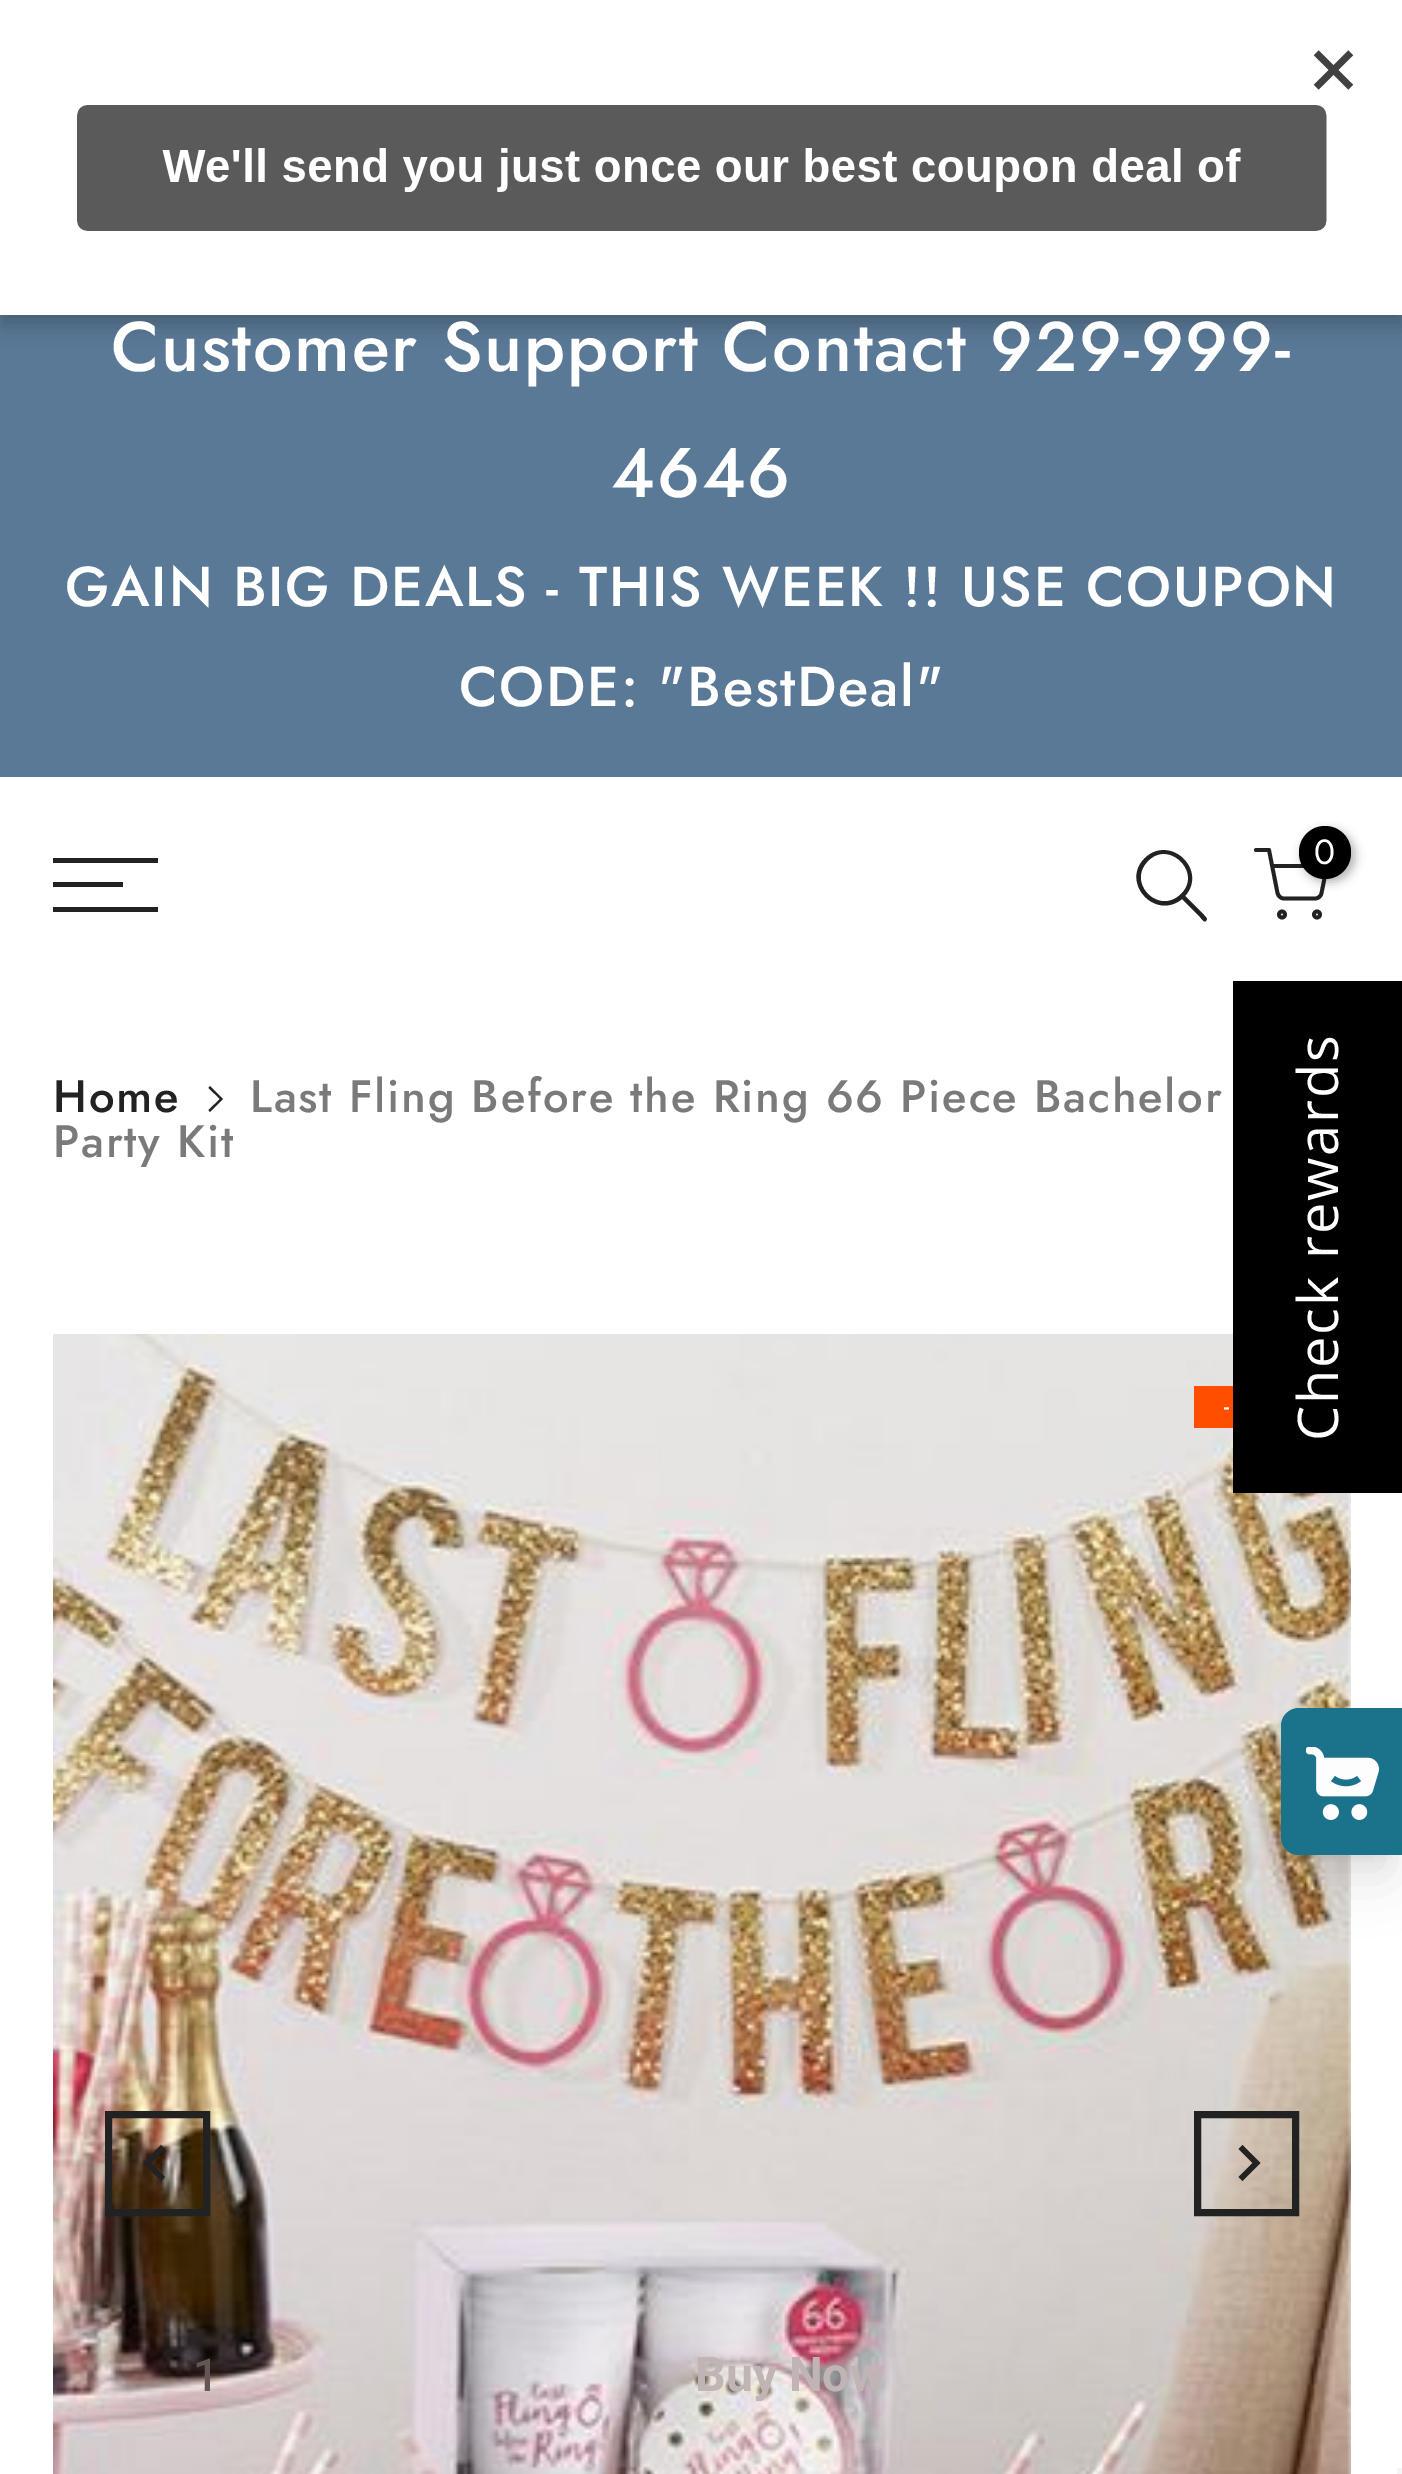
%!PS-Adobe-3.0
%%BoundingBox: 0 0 1402 2474
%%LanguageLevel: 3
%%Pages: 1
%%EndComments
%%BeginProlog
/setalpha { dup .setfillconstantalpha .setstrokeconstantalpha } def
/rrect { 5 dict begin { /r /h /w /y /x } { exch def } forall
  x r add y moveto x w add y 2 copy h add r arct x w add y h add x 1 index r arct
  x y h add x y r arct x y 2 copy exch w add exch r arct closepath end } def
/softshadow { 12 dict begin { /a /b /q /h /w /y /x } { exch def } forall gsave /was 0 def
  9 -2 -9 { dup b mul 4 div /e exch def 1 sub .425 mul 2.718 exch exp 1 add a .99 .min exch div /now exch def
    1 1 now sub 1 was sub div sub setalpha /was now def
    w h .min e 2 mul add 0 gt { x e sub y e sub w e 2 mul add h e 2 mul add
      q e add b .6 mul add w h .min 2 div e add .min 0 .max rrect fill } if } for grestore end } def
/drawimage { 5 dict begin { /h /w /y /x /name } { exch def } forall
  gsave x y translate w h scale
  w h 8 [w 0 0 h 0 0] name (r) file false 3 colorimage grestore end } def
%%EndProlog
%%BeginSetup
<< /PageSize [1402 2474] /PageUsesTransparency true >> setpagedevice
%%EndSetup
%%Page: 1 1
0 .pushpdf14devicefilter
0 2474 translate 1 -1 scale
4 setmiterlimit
1 setgray
0 0 1402 2474 rectfill
0.353 0.475 0.588 setrgbcolor
0 315 1402 462 rectfill
0 setgray
0 11 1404 315 0 10.5 0.2 softshadow
1 setgray
0 0 1402 315 rectfill
(images/1.raw) 76 50 1278 181 drawimage
0.133 setgray
newpath 1181 894 moveto 1159 916 1126 883 1148 861 curveto 1169 839 1203 873 1181 894 curveto closepath 1182 899 moveto 1155 921 1120 882 1145 858 curveto 1170 834 1208 870 1185 896 curveto 1188 899 1207 917 1207 919 curveto 1206 921 lineto 1204 923 1201 918 1200 917 curveto closepath eofill
3.8 setlinewidth
1 setlinecap
1 setlinejoin
newpath 1256 850 moveto 1269 850 lineto 1277.5 893 lineto 1278 896 1281 898.5 1284 898.5 curveto 1315 898.5 lineto 1318.5 898.5 1321 896 1321.5 893 curveto 1327 866 lineto 1272 866 lineto stroke
0 setgray
1302 830 53 52 26 5 0.3 softshadow
1299 826 52 53 26 rrect fill
0.133 setgray
0 setlinecap
0 setlinejoin
newpath 1282 914.5 3 0 360 arc closepath stroke
newpath 1317 914.5 3 0 360 arc closepath stroke
53 858 105 5 rectfill
53 882 70 5 rectfill
53 907 105 5 rectfill
newpath 210 1086 moveto 208.5 1088 lineto 220 1099 lineto 208.5 1110 lineto 210 1112 lineto 223 1099 lineto 222 1098 lineto closepath fill
(images/2.raw) 53 1334 1298 1140 drawimage
7 setlinewidth
108.5 2114.5 98 98 rectstroke
newpath 143.5 2163 moveto 161 2180.5 lineto 164.5 2177 lineto 150.5 2163 lineto 164.5 2149 lineto 161 2145.5 lineto closepath gsave fill grestore
0.4 setlinewidth
stroke
7 setlinewidth
1197.5 2114.5 98 98 rectstroke
newpath 1260 2163 moveto 1242.5 2145.5 lineto 1239 2149 lineto 1253 2163 lineto 1239 2177 lineto 1242.5 2180.5 lineto closepath gsave fill grestore
0.4 setlinewidth
stroke
1 0.306 0 setrgbcolor
1194 1386 39 42 rectfill
0 setgray
1233 981 169 512 rectfill
1295 1736 95 119 4 10.5 0.1 softshadow
1292 1754 101 126 7 26 0.1 softshadow
0.102 0.451 0.541 setrgbcolor
newpath 1299 1708 moveto 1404 1708 lineto 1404 1855 lineto 1299 1855 lineto 1289 1855 1281 1847 1281 1837 curveto 1281 1726 lineto 1281 1716 1289 1708 1299 1708 curveto closepath fill
(images/3.raw) 1306 1747 73 73 drawimage
0.961 setgray
1397 2468 5 6 rectfill
/Jost-Medium [70 0 0 -70 0 0] selectfont
1 setgray
111 371 moveto 1.75 0 (Customer Support Contact 929-999-) ashow
611 497 moveto 1.75 0 (4646) ashow
/Jost-Medium [56 0 0 -56 0 0] selectfont
65 606 moveto 1.75 0 (GAIN BIG DEALS - THIS WEEK !! USE COUPON) ashow
459 706 moveto 1.75 0 (CODE: "BestDeal") ashow
/Jost-Regular [35 0 0 -35 0 0] selectfont
1314 864 moveto (0) show
/Jost-Medium [45.5 0 0 -45.5 0 0] selectfont
0.133 setgray
53 1112 moveto 1.75 0 (Home) ashow
0.478 setgray
250 1112 moveto 1.75 0 (Last Fling Before the Ring 66 Piece Bachelor) ashow
53 1157 moveto 1.75 0 (Party Kit) ashow
/Jost-Medium [24 0 0 -24 0 0] selectfont
1 setgray
1224 1414 moveto 1 0 (-) ashow
/OpenSans-Regular [56 0 0 -56 0 0] selectfont
gsave 1338 1441 translate -90 rotate 0 0 moveto 1.75 0 (Check rewards) ashow grestore
/Roboto-Medium [45.5 0 0 -45.5 0 0] selectfont
0.392 0.337 0.325 setrgbcolor
193 2391 moveto (1) show
/Roboto-Bold [48 0 0 -48 0 0] selectfont
0.753 0.706 0.71 setrgbcolor
695 2391 moveto (Buy Now) show
.poppdf14devicefilter showpage
%%EOF
